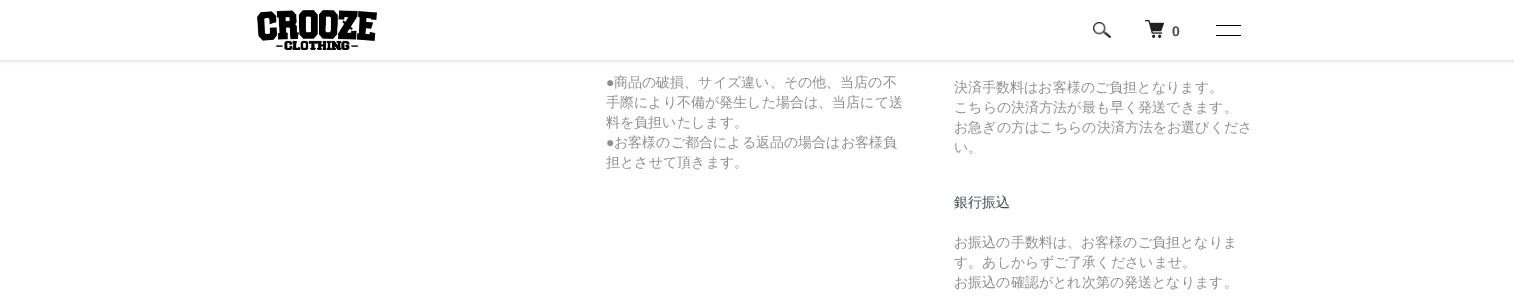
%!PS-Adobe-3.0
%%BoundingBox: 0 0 1514 301
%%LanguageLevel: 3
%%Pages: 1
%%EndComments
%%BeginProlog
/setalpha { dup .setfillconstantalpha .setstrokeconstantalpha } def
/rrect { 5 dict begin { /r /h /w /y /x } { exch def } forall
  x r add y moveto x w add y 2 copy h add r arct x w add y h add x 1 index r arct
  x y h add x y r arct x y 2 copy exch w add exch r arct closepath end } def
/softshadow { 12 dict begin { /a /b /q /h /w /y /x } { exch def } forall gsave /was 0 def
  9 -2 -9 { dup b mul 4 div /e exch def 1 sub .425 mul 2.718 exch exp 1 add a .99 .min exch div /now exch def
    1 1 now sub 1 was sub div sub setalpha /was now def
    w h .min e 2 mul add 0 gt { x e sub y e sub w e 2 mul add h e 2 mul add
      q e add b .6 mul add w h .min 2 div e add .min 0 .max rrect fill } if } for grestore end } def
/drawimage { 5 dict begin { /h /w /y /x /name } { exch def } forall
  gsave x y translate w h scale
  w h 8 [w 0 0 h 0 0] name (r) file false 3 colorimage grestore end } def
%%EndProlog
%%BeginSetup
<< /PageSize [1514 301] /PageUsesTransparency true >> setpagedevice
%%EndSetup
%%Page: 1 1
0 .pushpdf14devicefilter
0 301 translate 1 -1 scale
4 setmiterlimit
1 setgray
0 0 1514 301 rectfill
0 setgray
0 0 1514 60 0 2.5 0.2 softshadow
1 setgray
0 0 1514 60 rectfill
(images/1.raw) 257 10 120 40 drawimage
(images/2.raw) 1093 22 18 16 drawimage
(images/3.raw) 1145 20 19 18 drawimage
0 setgray
1216 25 25 1 rectfill
1216 35 25 1 rectfill
/LiberationSans-Bold [14 0 0 -14 0 0] selectfont
0.275 0.306 0.329 setrgbcolor
1172 36 moveto (0) show
/LiberationSans-Regular [14 0 0 -14 0 0] selectfont
0.565 setgray
606 87 moveto (●) show
/WenQuanYiZenHei-Medium [14 0 0 -14 0 0] selectfont
614 87 moveto (商品の破損、サイズ違い、その他、当店の不) show
606 107 moveto (手際により不備が発生した場合は、当店にて送) show
606 127 moveto (料を負担いたします。) show
/LiberationSans-Regular [14 0 0 -14 0 0] selectfont
606 147 moveto (●) show
/WenQuanYiZenHei-Medium [14 0 0 -14 0 0] selectfont
614 147 moveto (お客様のご都合による返品の場合はお客様負) show
606 167 moveto (担とさせて頂きます。) show
954 92 moveto (決済手数料はお客様のご負担となります。) show
954 112 moveto (こちらの決済方法が最も早く発送できます。) show
954 132 moveto (お急ぎの方はこちらの決済方法をお選びくださ) show
954 152 moveto (い。) show
0.275 0.306 0.329 setrgbcolor
954 207 moveto (銀行振込) show
0.565 setgray
954 247 moveto (お振込の手数料は、お客様のご負担となりま) show
954 267 moveto (す。あしからずご了承くださいませ。) show
954 287 moveto (お振込の確認がとれ次第の発送となります。) show
.poppdf14devicefilter showpage
%%EOF
